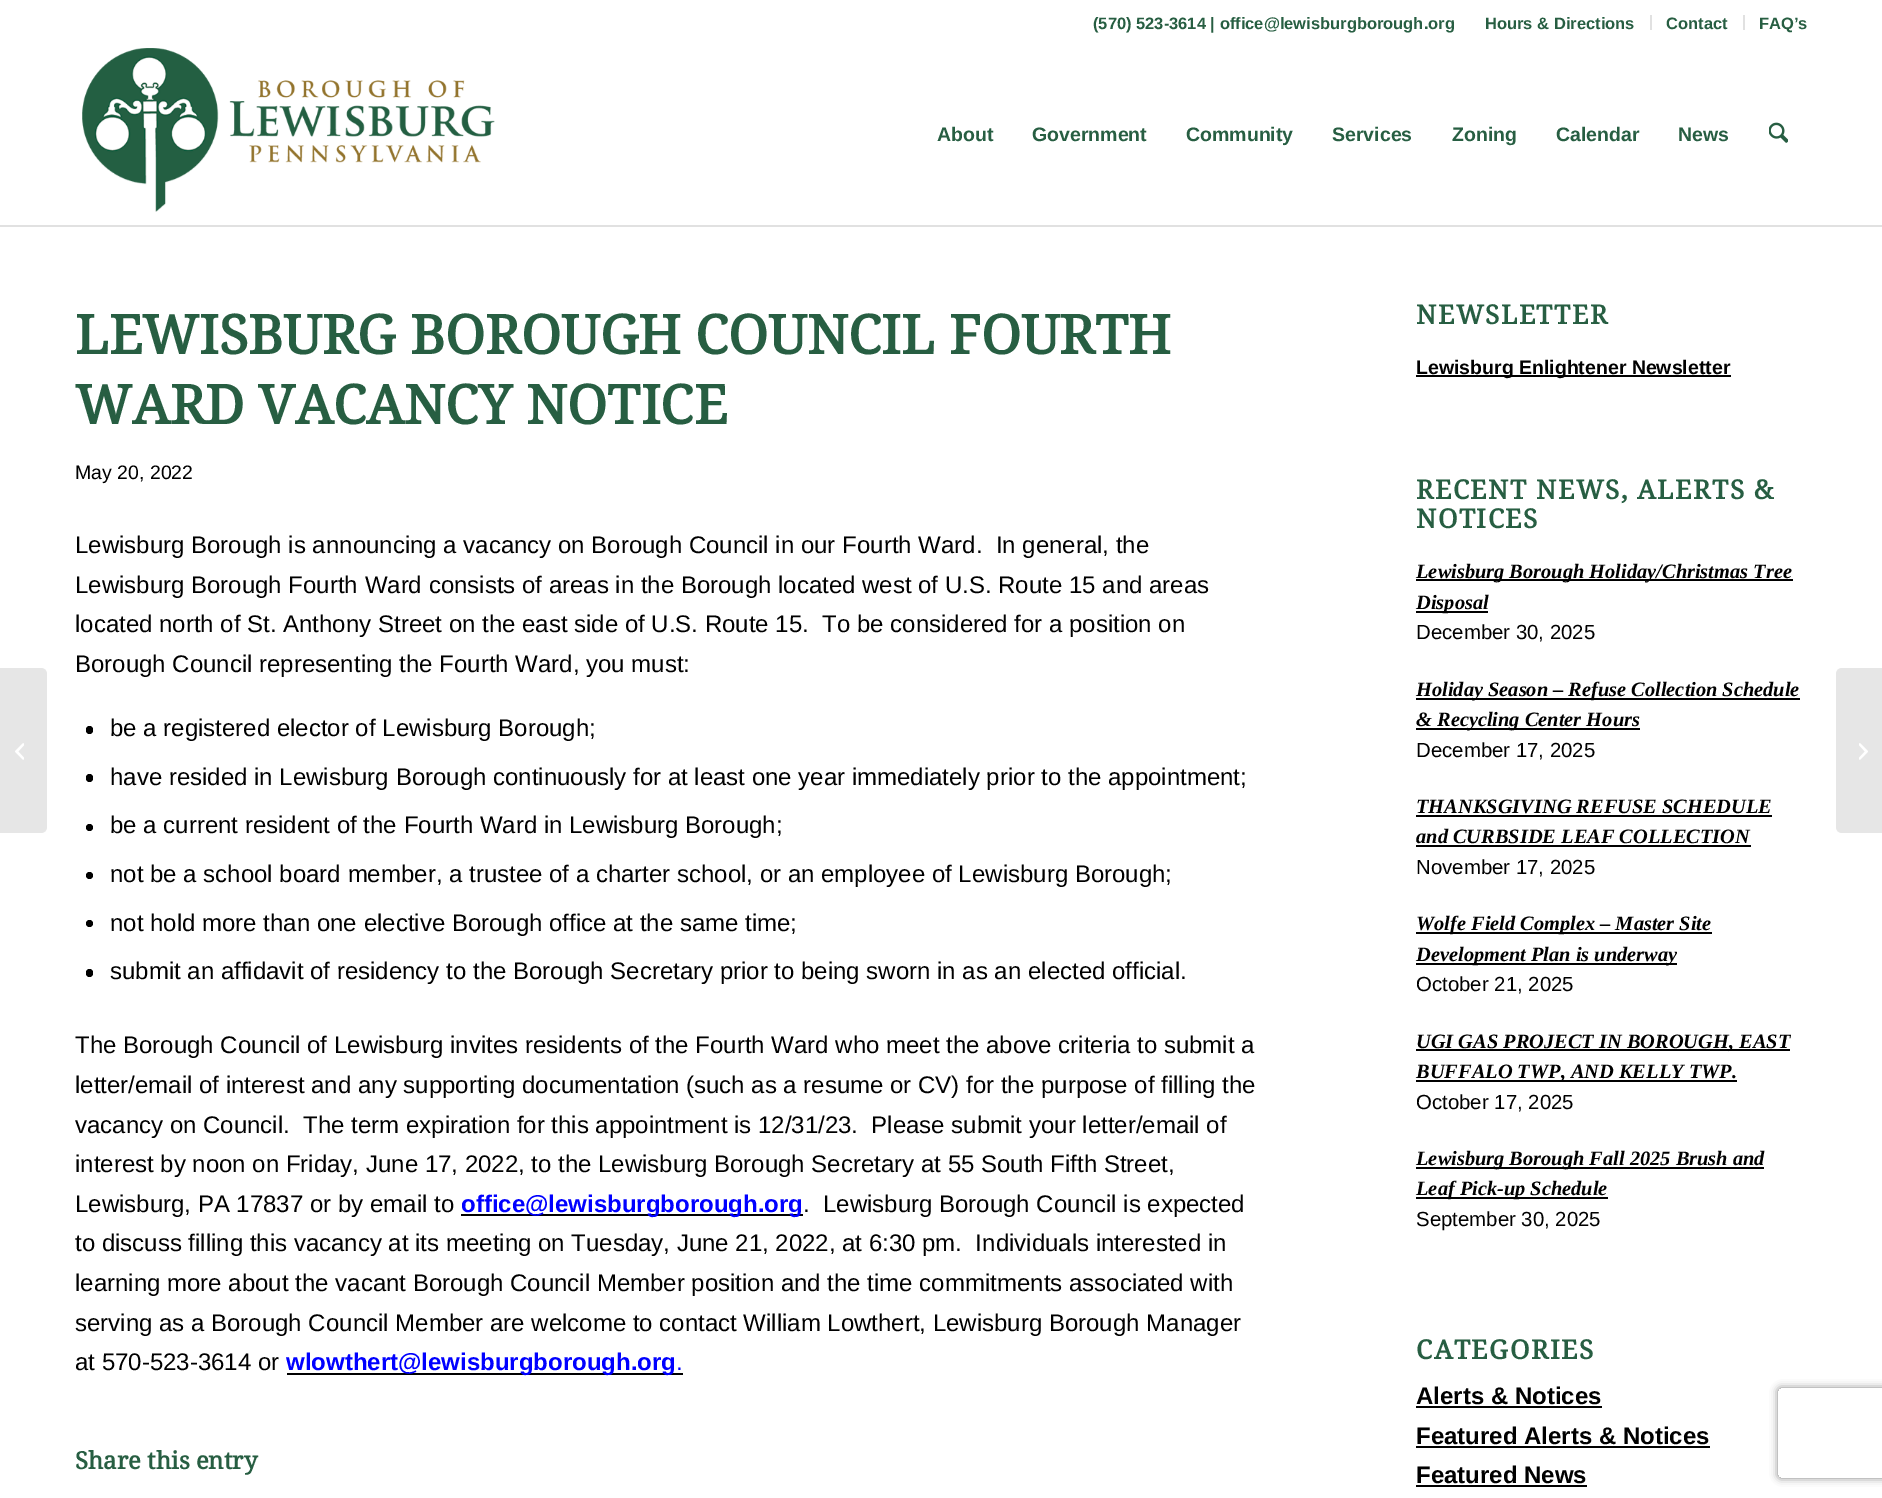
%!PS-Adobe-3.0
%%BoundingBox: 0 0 1882 1498
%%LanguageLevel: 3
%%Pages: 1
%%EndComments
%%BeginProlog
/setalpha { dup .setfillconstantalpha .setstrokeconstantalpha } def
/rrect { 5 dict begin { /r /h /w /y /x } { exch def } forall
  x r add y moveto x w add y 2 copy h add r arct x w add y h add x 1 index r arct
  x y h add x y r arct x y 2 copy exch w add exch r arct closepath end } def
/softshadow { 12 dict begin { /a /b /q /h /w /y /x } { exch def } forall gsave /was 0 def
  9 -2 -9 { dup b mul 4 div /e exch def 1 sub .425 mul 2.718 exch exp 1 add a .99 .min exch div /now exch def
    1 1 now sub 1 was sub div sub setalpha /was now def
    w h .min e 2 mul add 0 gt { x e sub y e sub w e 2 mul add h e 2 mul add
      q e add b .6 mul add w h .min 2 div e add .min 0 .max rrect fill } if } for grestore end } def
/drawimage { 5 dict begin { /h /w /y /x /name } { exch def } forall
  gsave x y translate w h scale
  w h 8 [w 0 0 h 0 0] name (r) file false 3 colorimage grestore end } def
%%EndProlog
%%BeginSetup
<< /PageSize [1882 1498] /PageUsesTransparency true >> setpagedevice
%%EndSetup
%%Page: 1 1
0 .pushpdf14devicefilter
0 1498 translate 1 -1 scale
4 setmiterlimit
1 setgray
0 0 1882 1498 rectfill
0.882 setgray
1650 15 2 15 rectfill
1743 15 2 15 rectfill
0 225 1882 2 rectfill
(images/1.raw) 82 48 413 164 drawimage
(images/2.raw) 1769 122 19 21 drawimage
0.902 setgray
newpath 0 668 moveto 41 668 lineto 44.5 668 47 670.5 47 674 curveto 47 827 lineto 47 830.5 44.5 833 41 833 curveto 0 833 lineto closepath fill
(images/3.raw) 15 743 9 17 drawimage
0 setgray
86 726 7 8 3.5 rrect fill
86 774 7 8 3.5 rrect fill
newpath 89.5 827.5 3.5 0 360 arc closepath fill
newpath 89.5 875.5 3.5 0 360 arc closepath fill
newpath 89.5 923.5 3.5 0 360 arc closepath fill
86 969 7 8 3.5 rrect fill
461 1214 342 2 rectfill
287 1373 396 2 rectfill
1416 375 315 2 rectfill
1416 579 377 2 rectfill
1416 611 72 2 rectfill
1416 698 384 2 rectfill
1416 728 224 2 rectfill
1416 815 356 2 rectfill
1416 845 335 2 rectfill
1416 932 296 2 rectfill
1416 963 261 2 rectfill
1416 1049 374 2 rectfill
1416 1080 321 2 rectfill
1416 1167 348 2 rectfill
1416 1197 192 2 rectfill
1416 1406 186 2 rectfill
1416 1446 294 2 rectfill
1416 1485 171 2 rectfill
0.902 setgray
newpath 1842 668 moveto 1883 668 lineto 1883 833 lineto 1842 833 lineto 1838.5 833 1836 830.5 1836 827 curveto 1836 674 lineto 1836 670.5 1838.5 668 1842 668 curveto closepath fill
(images/4.raw) 1859 743 9 17 drawimage
gsave
newpath 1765 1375 moveto 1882 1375 lineto 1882 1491 lineto 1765 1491 lineto closepath 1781 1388 moveto 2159 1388 lineto 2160.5 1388 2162 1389.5 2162 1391 curveto 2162 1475 lineto 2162 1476.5 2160.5 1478 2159 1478 curveto 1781 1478 lineto 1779.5 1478 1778 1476.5 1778 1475 curveto 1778 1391 lineto 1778 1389.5 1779.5 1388 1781 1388 curveto closepath eoclip newpath
0.502 setgray
1778 1388 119 90 3 4 1 softshadow
grestore
/LiberationSans-Bold [16.5 0 0 -16.5 0 0] selectfont
0.153 0.369 0.259 setrgbcolor
1093 29 moveto (\(570\) 523-3614 | office@lewisburgborough.org) show
1485 29 moveto (Hours & Directions) show
1666 29 moveto (Contact) show
1759 29 moveto (FAQ’s) show
/LiberationSans-Bold [19.5 0 0 -19.5 0 0] selectfont
937 141 moveto (About) show
1032 141 moveto (Government) show
1186 141 moveto (Community) show
1332 141 moveto (Services) show
1452 141 moveto (Zoning) show
1556 141 moveto (Calendar) show
1678 141 moveto (News) show
/DroidSerif-Bold [54 0 0 -54 0 0] selectfont
75 354 moveto (LEWISBURG BOROUGH COUNCIL FOURTH) show
75 424 moveto (WARD VACANCY NOTICE) show
/LiberationSans-Regular [19.5 0 0 -19.5 0 0] selectfont
0 setgray
75 479 moveto (May 20, 2022) show
/LiberationSans-Regular [24 0 0 -24 0 0] selectfont
75 553 moveto (Lewisburg Borough is announcing a vacancy on Borough Council in our Fourth Ward.  In general, the) show
75 593 moveto (Lewisburg Borough Fourth Ward consists of areas in the Borough located west of U.S. Route 15 and areas) show
75 632 moveto (located north of St. Anthony Street on the east side of U.S. Route 15.  To be considered for a position on) show
75 672 moveto (Borough Council representing the Fourth Ward, you must:) show
110 736 moveto (be a registered elector of Lewisburg Borough;) show
110 785 moveto (have resided in Lewisburg Borough continuously for at least one year immediately prior to the appointment;) show
110 833 moveto (be a current resident of the Fourth Ward in Lewisburg Borough;) show
110 882 moveto (not be a school board member, a trustee of a charter school, or an employee of Lewisburg Borough;) show
110 931 moveto (not hold more than one elective Borough office at the same time;) show
110 979 moveto (submit an affidavit of residency to the Borough Secretary prior to being sworn in as an elected official.) show
75 1053 moveto (The Borough Council of Lewisburg invites residents of the Fourth Ward who meet the above criteria to submit a) show
75 1093 moveto (letter/email of interest and any supporting documentation \(such as a resume or CV\) for the purpose of filling the) show
75 1133 moveto (vacancy on Council.  The term expiration for this appointment is 12/31/23.  Please submit your letter/email of) show
75 1172 moveto (interest by noon on Friday, June 17, 2022, to the Lewisburg Borough Secretary at 55 South Fifth Street,) show
75 1212 moveto (Lewisburg, PA 17837 or by email to) show
/LiberationSans-Bold [24 0 0 -24 0 0] selectfont
0 0 1 setrgbcolor
461 1212 moveto (office@lewisburgborough.org) show
/LiberationSans-Regular [24 0 0 -24 0 0] selectfont
0 setgray
803 1212 moveto (.  Lewisburg Borough Council is expected) show
75 1251 moveto (to discuss filling this vacancy at its meeting on Tuesday, June 21, 2022, at 6:30 pm.  Individuals interested in) show
75 1291 moveto (learning more about the vacant Borough Council Member position and the time commitments associated with) show
75 1331 moveto (serving as a Borough Council Member are welcome to contact William Lowthert, Lewisburg Borough Manager) show
75 1370 moveto (at 570-523-3614 or) show
/LiberationSans-Bold [24 0 0 -24 0 0] selectfont
0 0 1 setrgbcolor
286 1370 moveto (wlowthert@lewisburgborough.org) show
/LiberationSans-Regular [24 0 0 -24 0 0] selectfont
676 1370 moveto (.) show
/DroidSerif-Bold [24 0 0 -24 0 0] selectfont
0.153 0.369 0.259 setrgbcolor
75 1469 moveto (Share this entry) show
/DroidSerif-Bold [26.4 0 0 -26.4 0 0] selectfont
1416 324 moveto 1.5 0 (NEWSLETTER) ashow
/LiberationSans-Bold [19.5 0 0 -19.5 0 0] selectfont
0 setgray
1416 374 moveto (Lewisburg Enlightener Newsletter) show
/DroidSerif-Bold [26.4 0 0 -26.4 0 0] selectfont
0.153 0.369 0.259 setrgbcolor
1416 499 moveto 1.5 0 (RECENT NEWS, ALERTS &) ashow
1416 528 moveto 1.5 0 (NOTICES) ashow
/LiberationSerif-BoldItalic [20.4 0 0 -20.4 0 0] selectfont
0 setgray
1416 578 moveto (Lewisburg Borough Holiday/Christmas Tree) show
1416 609 moveto (Disposal) show
/LiberationSans-Regular [20.4 0 0 -20.4 0 0] selectfont
1416 639 moveto (December 30, 2025) show
/LiberationSerif-BoldItalic [20.4 0 0 -20.4 0 0] selectfont
1416 696 moveto (Holiday Season – Refuse Collection Schedule) show
1416 726 moveto (& Recycling Center Hours) show
/LiberationSans-Regular [20.4 0 0 -20.4 0 0] selectfont
1416 757 moveto (December 17, 2025) show
/LiberationSerif-BoldItalic [20.4 0 0 -20.4 0 0] selectfont
1416 813 moveto (THANKSGIVING REFUSE SCHEDULE) show
1416 843 moveto (and CURBSIDE LEAF COLLECTION) show
/LiberationSans-Regular [20.4 0 0 -20.4 0 0] selectfont
1416 874 moveto (November 17, 2025) show
/LiberationSerif-BoldItalic [20.4 0 0 -20.4 0 0] selectfont
1416 930 moveto (Wolfe Field Complex – Master Site) show
1416 961 moveto (Development Plan is underway) show
/LiberationSans-Regular [20.4 0 0 -20.4 0 0] selectfont
1416 991 moveto (October 21, 2025) show
/LiberationSerif-BoldItalic [20.4 0 0 -20.4 0 0] selectfont
1416 1048 moveto (UGI GAS PROJECT IN BOROUGH, EAST) show
1416 1078 moveto (BUFFALO TWP, AND KELLY TWP.) show
/LiberationSans-Regular [20.4 0 0 -20.4 0 0] selectfont
1416 1109 moveto (October 17, 2025) show
/LiberationSerif-BoldItalic [20.4 0 0 -20.4 0 0] selectfont
1416 1165 moveto (Lewisburg Borough Fall 2025 Brush and) show
1416 1195 moveto (Leaf Pick-up Schedule) show
/LiberationSans-Regular [20.4 0 0 -20.4 0 0] selectfont
1416 1226 moveto (September 30, 2025) show
/DroidSerif-Bold [26.4 0 0 -26.4 0 0] selectfont
0.153 0.369 0.259 setrgbcolor
1416 1359 moveto 1.5 0 (CATEGORIES) ashow
/LiberationSans-Bold [24 0 0 -24 0 0] selectfont
0 setgray
1416 1404 moveto (Alerts & Notices) show
1416 1444 moveto (Featured Alerts & Notices) show
1416 1483 moveto (Featured News) show
.poppdf14devicefilter showpage
%%EOF
